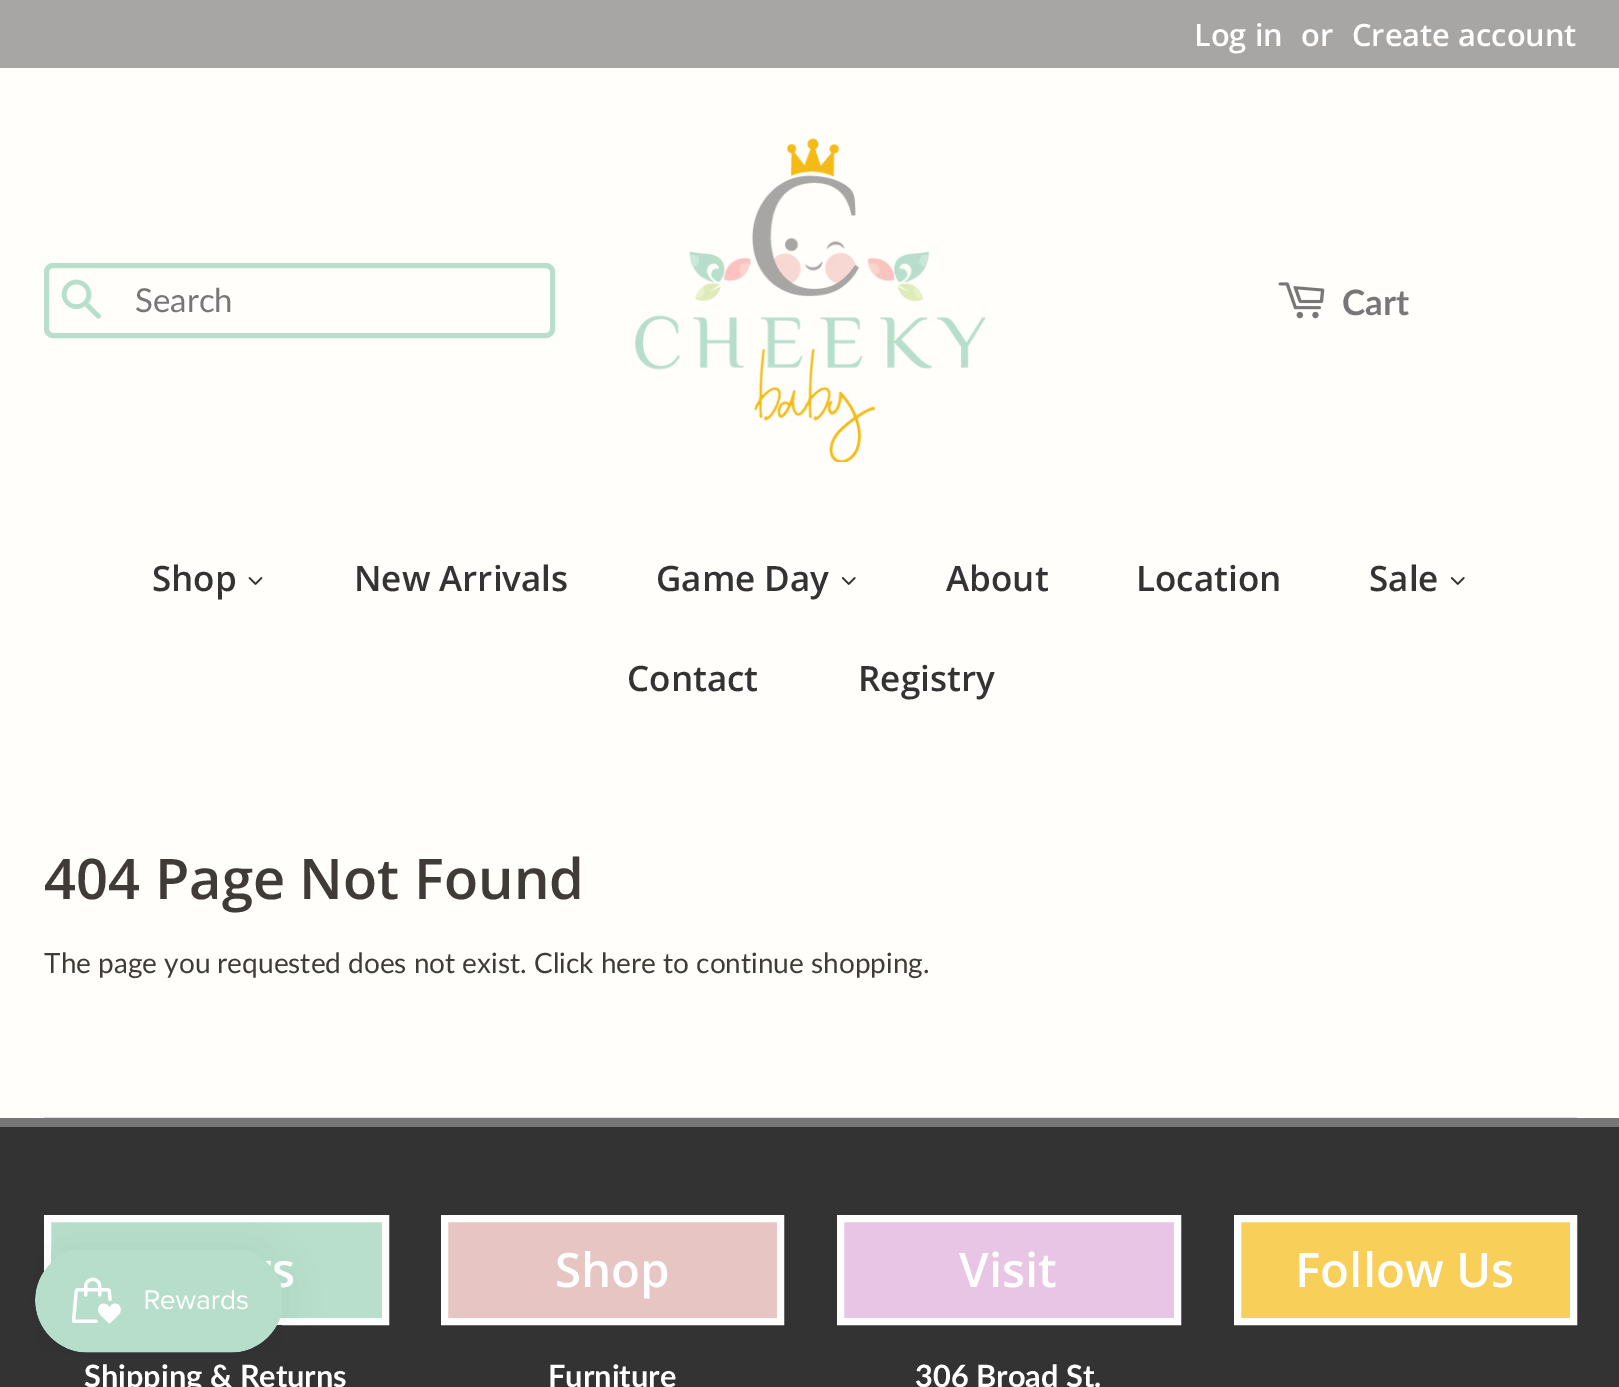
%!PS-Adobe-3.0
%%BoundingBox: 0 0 1619 1387
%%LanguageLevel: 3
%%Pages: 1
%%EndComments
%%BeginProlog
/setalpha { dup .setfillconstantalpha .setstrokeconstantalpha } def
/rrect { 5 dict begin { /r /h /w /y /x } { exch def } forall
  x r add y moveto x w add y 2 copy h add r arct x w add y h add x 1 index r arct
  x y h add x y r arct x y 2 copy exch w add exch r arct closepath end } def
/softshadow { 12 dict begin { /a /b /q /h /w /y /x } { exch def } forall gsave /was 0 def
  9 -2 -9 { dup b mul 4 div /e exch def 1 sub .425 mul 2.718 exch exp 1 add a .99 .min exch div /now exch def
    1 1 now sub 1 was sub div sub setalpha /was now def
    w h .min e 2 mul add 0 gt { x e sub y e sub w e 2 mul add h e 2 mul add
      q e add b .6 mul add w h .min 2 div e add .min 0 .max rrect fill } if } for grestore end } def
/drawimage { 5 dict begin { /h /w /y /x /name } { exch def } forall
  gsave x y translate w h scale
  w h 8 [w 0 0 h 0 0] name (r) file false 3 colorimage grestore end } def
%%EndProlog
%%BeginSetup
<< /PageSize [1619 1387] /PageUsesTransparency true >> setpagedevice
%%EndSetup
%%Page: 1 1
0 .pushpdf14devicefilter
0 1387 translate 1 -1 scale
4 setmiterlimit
1 0.996 0.984 setrgbcolor
0 0 1619 1387 rectfill
0.659 0.651 0.643 setrgbcolor
0 0 1619 68 rectfill
0.718 0.875 0.8 setrgbcolor
5 setlinewidth
46.5 265.5 506 70 6.5 rrect stroke
(images/1.raw) 61 279 40 40 drawimage
(images/2.raw) 635 138 351 324 drawimage
(images/3.raw) 1278 282 47 37 drawimage
(images/4.raw) 248 577 15 8 drawimage
(images/5.raw) 841 577 15 8 drawimage
(images/5.raw) 1450 577 15 8 drawimage
0.867 setgray
44 1117 1533 1 rectfill
0.2 setgray
0 1127 1619 260 rectfill
0.718 0.875 0.8 setrgbcolor
newpath 47.5 1218.5 moveto 385.5 1218.5 lineto 385.5 1321.5 lineto 47.5 1321.5 lineto closepath gsave fill grestore
1 setgray
7 setlinewidth
stroke
0 setgray
35 1248 249 105 52.5 22 0.05 softshadow
0.467 setgray
0 1118 1619 9 rectfill
0.906 0.773 0.765 setrgbcolor
newpath 444.5 1218.5 moveto 780.5 1218.5 lineto 780.5 1321.5 lineto 444.5 1321.5 lineto closepath gsave fill grestore
1 setgray
stroke
0.91 0.773 0.894 setrgbcolor
newpath 840.5 1218.5 moveto 1177.5 1218.5 lineto 1177.5 1321.5 lineto 840.5 1321.5 lineto closepath gsave fill grestore
1 setgray
stroke
0.973 0.812 0.345 setrgbcolor
newpath 1237.5 1218.5 moveto 1573.5 1218.5 lineto 1573.5 1321.5 lineto 1237.5 1321.5 lineto closepath gsave fill grestore
1 setgray
stroke
/OpenSans-SemiBold [30.75 0 0 -30.75 0 0] selectfont
1194 46 moveto (Log in) show
1301 46 moveto (or) show
1352 46 moveto (Create account) show
/Lato-Regular [33 0 0 -33 0 0] selectfont
0.467 setgray
135 312 moveto (Search) show
/Lato-Bold [35 0 0 -35 0 0] selectfont
1342 315 moveto (Cart) show
/OpenSans-SemiBold [35 0 0 -35 0 0] selectfont
0.2 setgray
152 591 moveto (Shop) show
354 591 moveto (New Arrivals) show
656 591 moveto (Game Day) show
946 591 moveto (About) show
1136 591 moveto (Location) show
1369 591 moveto (Sale) show
627 691 moveto (Contact) show
858 691 moveto (Registry) show
/OpenSans-SemiBold [56 0 0 -56 0 0] selectfont
0.251 0.231 0.216 setrgbcolor
44 899 moveto (404 Page Not Found) show
/Lato-Regular [28 0 0 -28 0 0] selectfont
44 973 moveto (The page you requested does not exist. Click here to continue shopping.) show
/OpenSans-SemiBold [47.5 0 0 -47.5 0 0] selectfont
1 setgray
272 1287 moveto (s) show
(images/6.raw) 35 1250 247 103 drawimage
/Lato-Bold [30.75 0 0 -30.75 0 0] selectfont
84 1387 moveto (Shipping & Returns) show
/OpenSans-SemiBold [47.5 0 0 -47.5 0 0] selectfont
555 1287 moveto (Shop) show
/Lato-Bold [30.75 0 0 -30.75 0 0] selectfont
548 1387 moveto (Furniture) show
/OpenSans-SemiBold [47.5 0 0 -47.5 0 0] selectfont
959 1287 moveto (Visit) show
/Lato-Bold [30.75 0 0 -30.75 0 0] selectfont
915 1387 moveto (306 Broad St.) show
/OpenSans-SemiBold [47.5 0 0 -47.5 0 0] selectfont
1295 1287 moveto (Follow Us) show
.poppdf14devicefilter showpage
%%EOF
